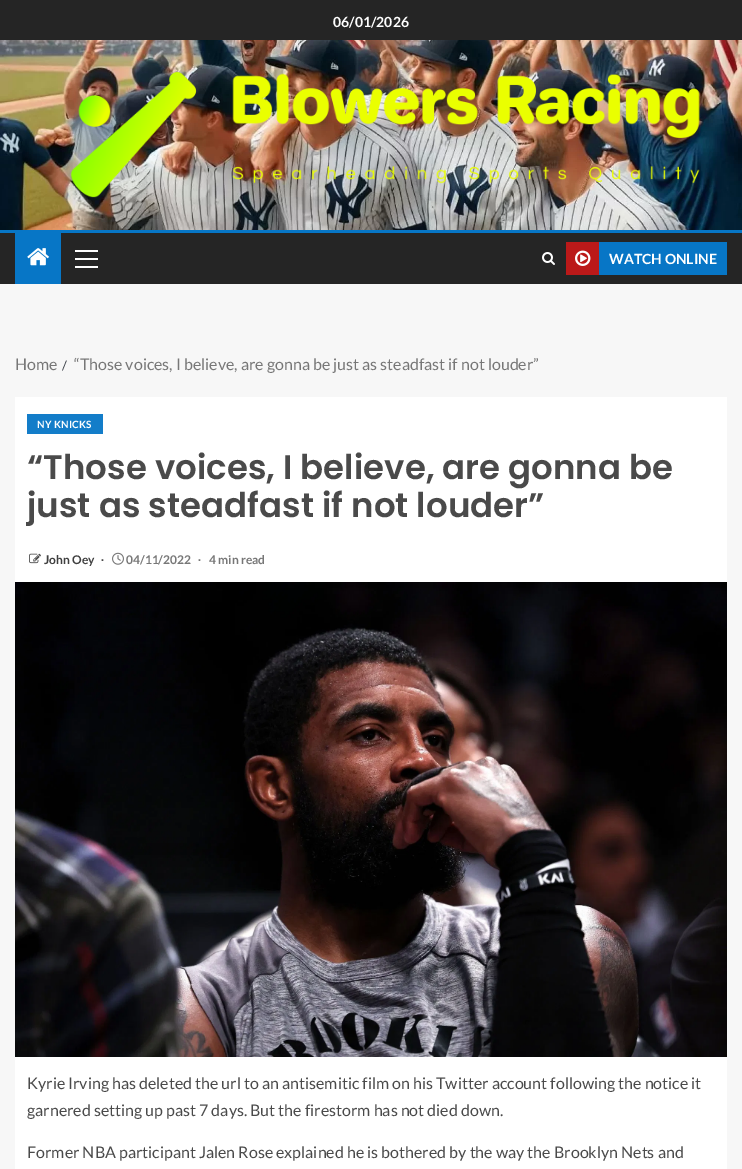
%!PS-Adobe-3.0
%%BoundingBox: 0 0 742 1169
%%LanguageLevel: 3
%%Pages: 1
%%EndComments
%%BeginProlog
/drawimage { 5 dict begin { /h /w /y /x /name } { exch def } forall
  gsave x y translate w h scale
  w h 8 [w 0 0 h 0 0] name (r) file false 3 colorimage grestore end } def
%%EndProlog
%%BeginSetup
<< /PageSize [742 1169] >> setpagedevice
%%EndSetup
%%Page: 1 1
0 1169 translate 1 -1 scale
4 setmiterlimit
0.969 setgray
0 0 742 1169 rectfill
0.145 setgray
0 0 742 40 rectfill
(images/1.raw) 0 40 742 190 drawimage
(images/2.raw) 70 72 630 126 drawimage
0 233 742 51 rectfill
0.027 0.463 0.776 setrgbcolor
0 230 742 3 rectfill
15 233 46 51 rectfill
(images/3.raw) 27 248 22 18 drawimage
1 setgray
75 258 23 2 rectfill
75 250 23 2 rectfill
75 266 23 2 rectfill
(images/4.raw) 542 252 13 13 drawimage
0.733 0.098 0.098 setrgbcolor
566 242 33 33 rectfill
(images/5.raw) 575 250 16 16 drawimage
0.027 0.463 0.776 setrgbcolor
599 242 128 33 rectfill
1 setgray
15 397 712 185 rectfill
0.075 0.49 0.788 setrgbcolor
27 414 76 20 rectfill
(images/6.raw) 29 553 12 11 drawimage
(images/7.raw) 112 552 12 13 drawimage
(images/8.raw) 15 582 712 475 drawimage
1 setgray
15 1057 712 112 rectfill
/Lato-Bold [14 0 0 -14 0 0] selectfont
333 27 moveto (06/01/2026) show
609 264 moveto (WATCH ONLINE) show
/Lato-Regular [16 0 0 -16 0 0] selectfont
0.467 setgray
15 370 moveto (Home) show
/Lato-Regular [13 0 0 -13 0 0] selectfont
0.224 0.243 0.275 setrgbcolor
62 370 moveto (/) show
/Lato-Regular [16 0 0 -16 0 0] selectfont
0.467 setgray
74 370 moveto (“Those voices, I believe, are gonna be just as steadfast if not louder”) show
/Lato-Bold [10 0 0 -10 0 0] selectfont
1 setgray
37 428 moveto 0.25 0 (NY KNICKS) ashow
/Poppins-SemiBold [34 0 0 -34 0 0] selectfont
0.29 setgray
27 479 moveto (“Those voices, I believe, are gonna be) show
27 517 moveto (just as steadfast if not louder”) show
/Lato-Bold [12 0 0 -12 0 0] selectfont
0.251 setgray
44 564 moveto (John Oey) show
/LiberationSerif-Bold [12 0 0 -12 0 0] selectfont
0.29 setgray
101 564 moveto (∙) show
/Lato-Bold [12 0 0 -12 0 0] selectfont
0.467 setgray
126 564 moveto (04/11/2022) show
/LiberationSerif-Bold [12 0 0 -12 0 0] selectfont
198 564 moveto (∙) show
/Lato-Bold [12 0 0 -12 0 0] selectfont
209 564 moveto (4 min read) show
/Lato-Regular [16 0 0 -16 0 0] selectfont
0.29 setgray
27 1089 moveto (Kyrie Irving has deleted the url to an antisemitic film on his Twitter account following the notice it) show
27 1116 moveto (garnered setting up past 7 days. But the firestorm has not died down.) show
27 1158 moveto (Former NBA participant Jalen Rose explained he is bothered by the way the Brooklyn Nets and) show
showpage
%%EOF
